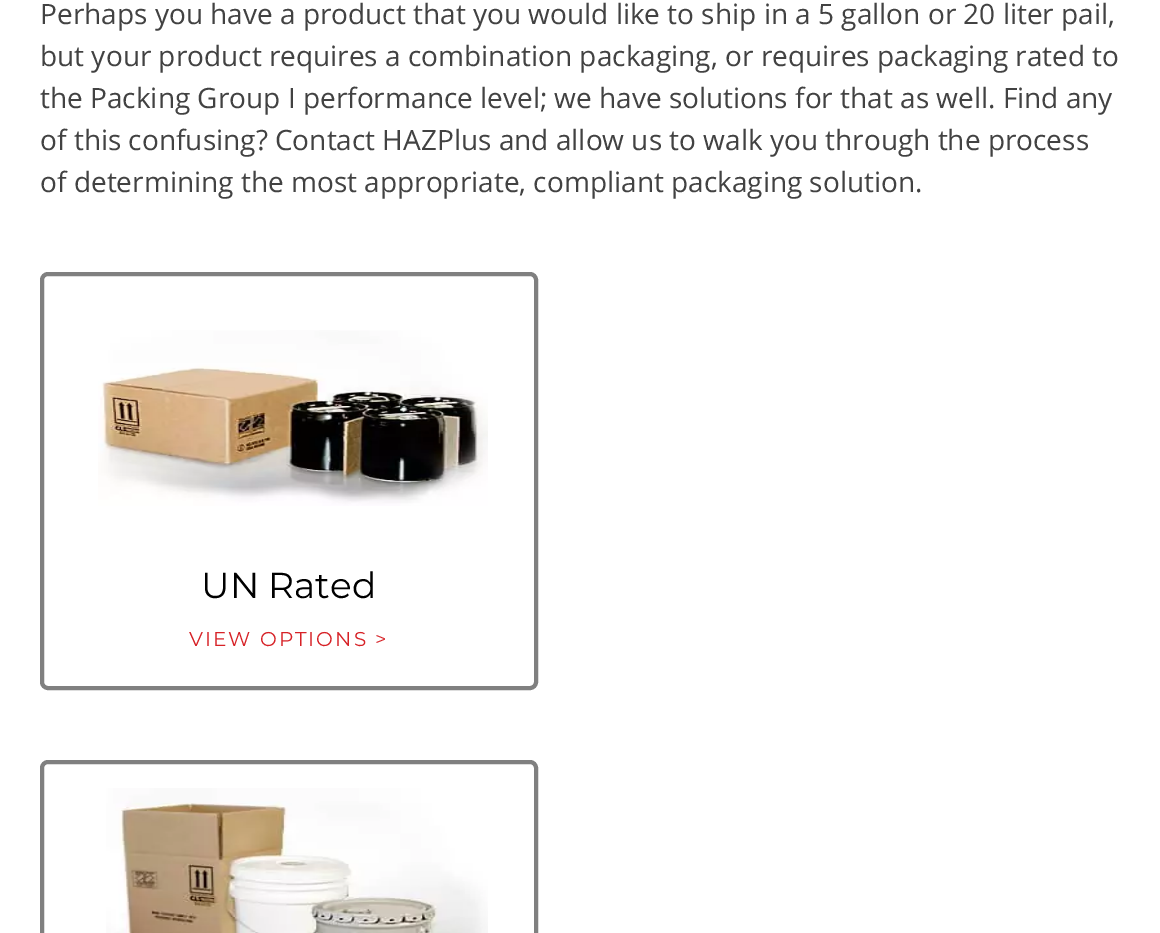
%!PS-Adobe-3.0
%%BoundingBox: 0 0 1160 933
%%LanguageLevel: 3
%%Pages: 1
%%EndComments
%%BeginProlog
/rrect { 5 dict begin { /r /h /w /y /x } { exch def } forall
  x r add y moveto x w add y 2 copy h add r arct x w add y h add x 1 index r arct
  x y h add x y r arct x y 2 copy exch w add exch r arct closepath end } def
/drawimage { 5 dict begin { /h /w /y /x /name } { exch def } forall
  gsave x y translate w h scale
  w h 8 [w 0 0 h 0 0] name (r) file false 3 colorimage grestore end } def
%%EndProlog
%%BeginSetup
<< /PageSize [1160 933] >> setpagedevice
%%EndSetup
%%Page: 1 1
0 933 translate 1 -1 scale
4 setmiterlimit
1 setgray
0 0 1160 933 rectfill
0.502 setgray
4 setlinewidth
42 274 494 414 6 rrect stroke
(images/1.raw) 98 330 390 176 drawimage
42 762 494 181 6 rrect stroke
(images/2.raw) 106 788 382 145 drawimage
/OpenSans-Regular [28 0 0 -28 0 0] selectfont
0.259 setgray
40 24 moveto (Perhaps you have a product that you would like to ship in a 5 gallon or 20 liter pail,) show
40 66 moveto (but your product requires a combination packaging, or requires packaging rated to) show
40 108 moveto (the Packing Group I performance level; we have solutions for that as well. Find any) show
40 150 moveto (of this confusing? Contact HAZPlus and allow us to walk you through the process) show
40 192 moveto (of determining the most appropriate, compliant packaging solution.) show
/Montserrat-Regular [36 0 0 -36 0 0] selectfont
0 setgray
201 598 moveto (UN Rated) show
/Montserrat-Regular [20 0 0 -20 0 0] selectfont
0.843 0.133 0.153 setrgbcolor
189 646 moveto 2 0 (VIEW OPTIONS >) ashow
showpage
%%EOF
